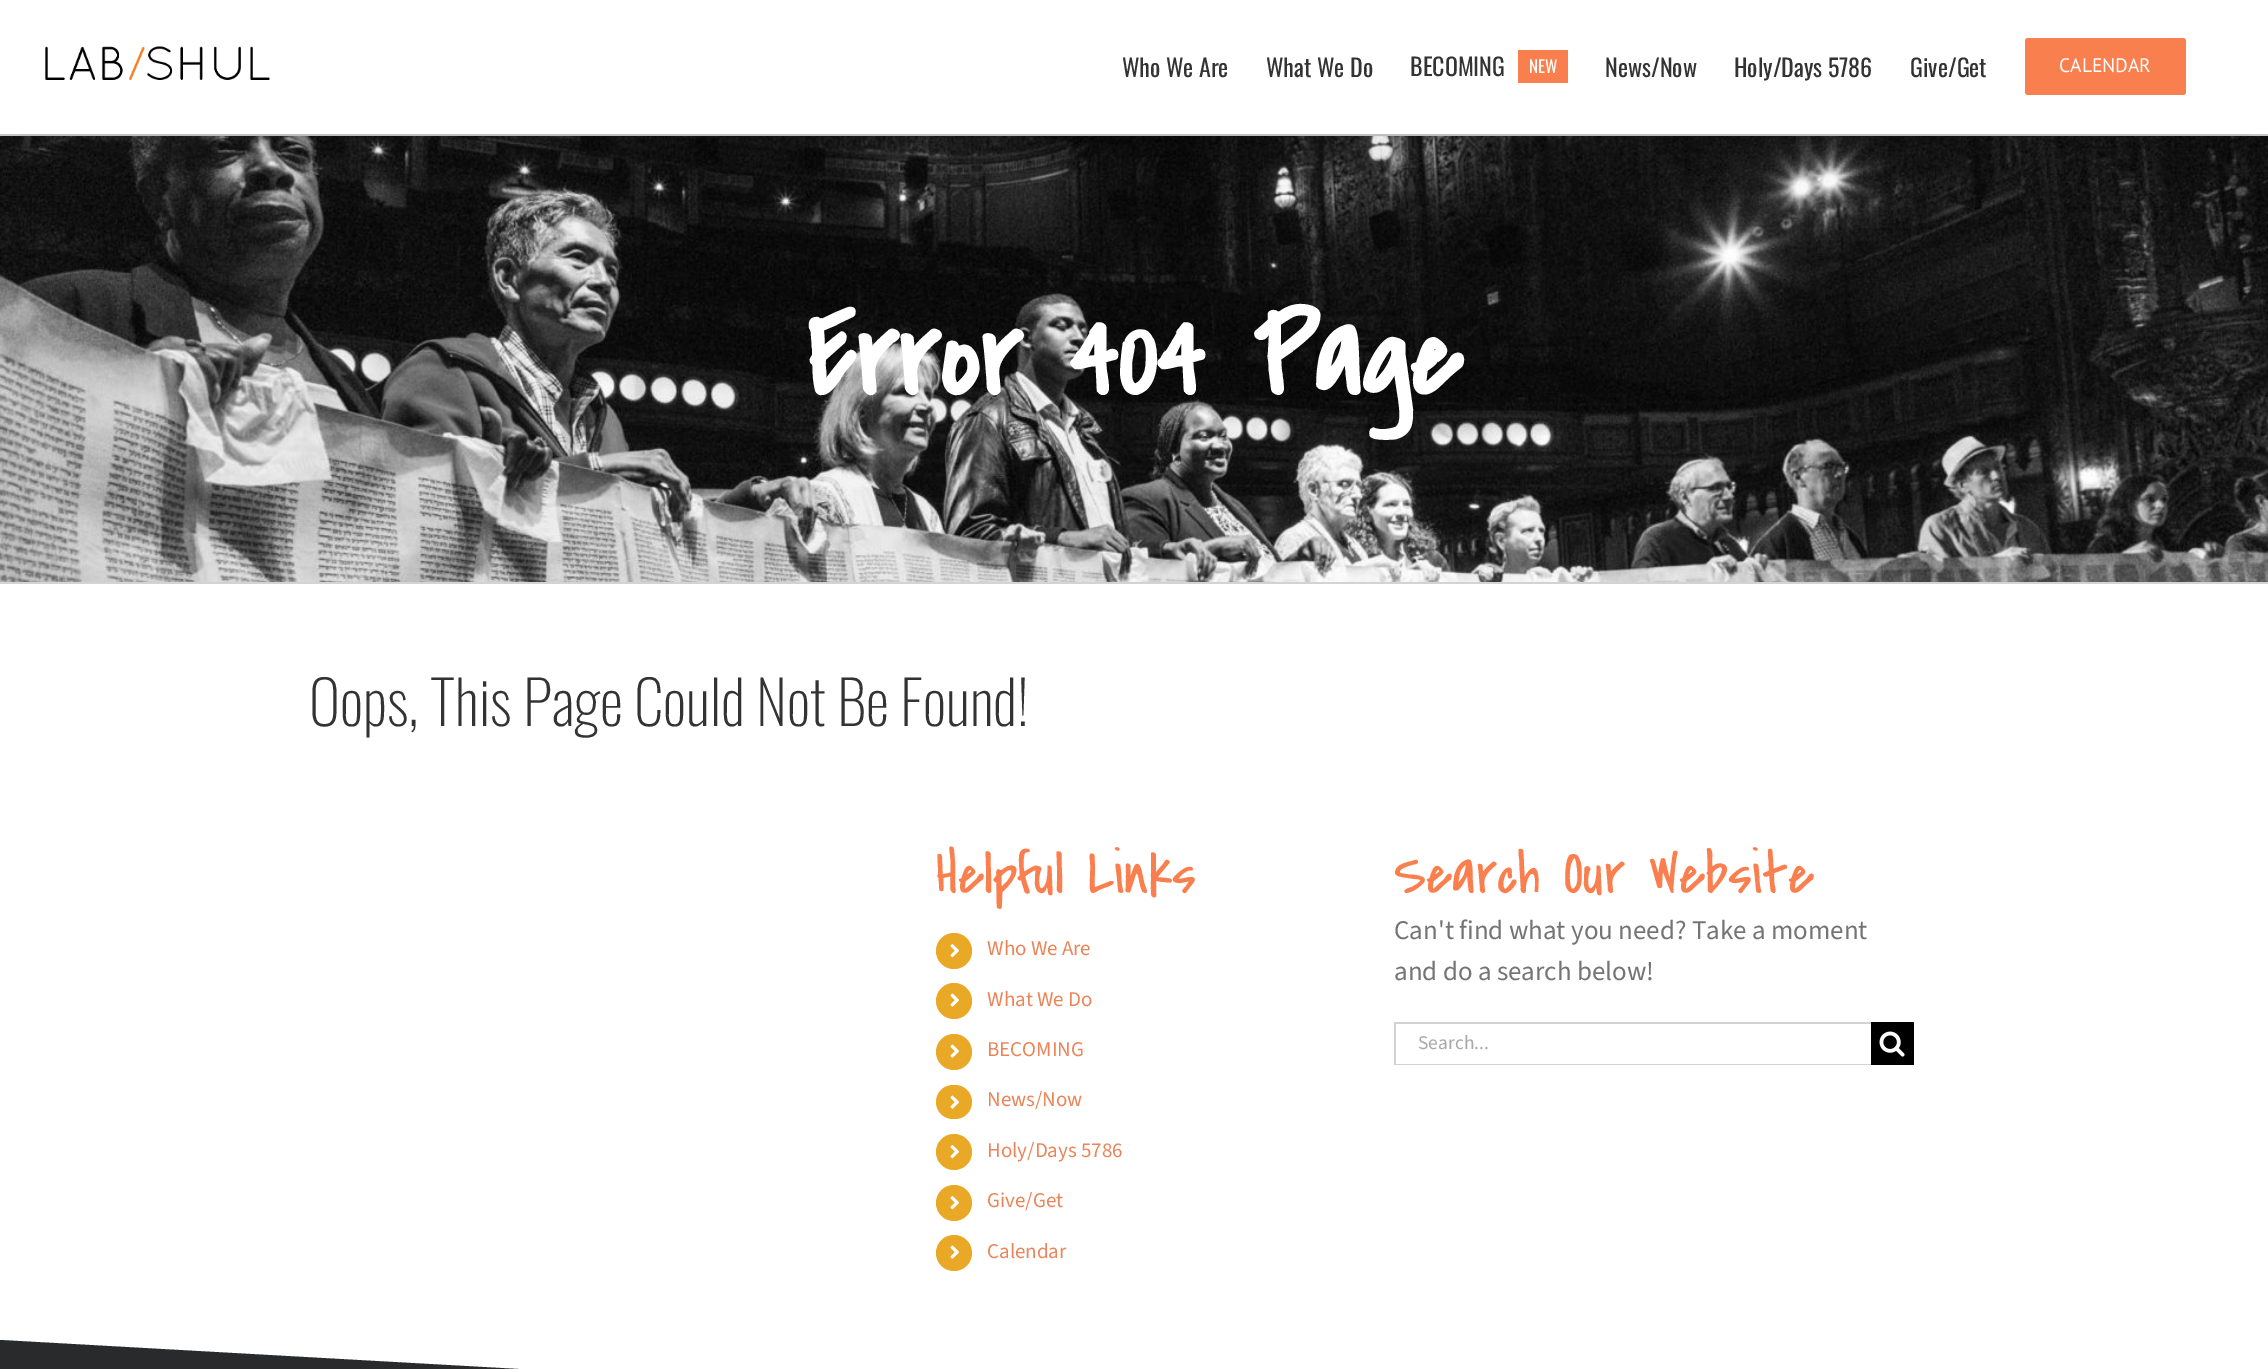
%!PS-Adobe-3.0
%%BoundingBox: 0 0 2268 1369
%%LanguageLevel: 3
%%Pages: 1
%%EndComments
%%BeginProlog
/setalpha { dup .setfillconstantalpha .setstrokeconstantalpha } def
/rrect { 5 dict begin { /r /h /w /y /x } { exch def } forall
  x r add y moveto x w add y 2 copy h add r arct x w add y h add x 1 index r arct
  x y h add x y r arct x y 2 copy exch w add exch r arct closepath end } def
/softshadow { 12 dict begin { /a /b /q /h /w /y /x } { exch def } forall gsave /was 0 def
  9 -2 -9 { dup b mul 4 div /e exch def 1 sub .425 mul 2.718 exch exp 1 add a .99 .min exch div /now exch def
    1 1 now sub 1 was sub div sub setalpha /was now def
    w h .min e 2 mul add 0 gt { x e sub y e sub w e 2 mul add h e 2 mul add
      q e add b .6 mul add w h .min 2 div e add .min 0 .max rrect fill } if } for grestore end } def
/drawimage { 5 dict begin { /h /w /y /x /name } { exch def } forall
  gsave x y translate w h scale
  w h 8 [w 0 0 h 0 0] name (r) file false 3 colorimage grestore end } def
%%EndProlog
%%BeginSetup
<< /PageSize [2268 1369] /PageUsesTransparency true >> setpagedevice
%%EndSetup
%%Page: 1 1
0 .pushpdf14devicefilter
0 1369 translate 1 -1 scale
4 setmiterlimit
1 setgray
0 0 2268 1369 rectfill
(images/2.raw) 0 136 2268 446 drawimage
0.824 0.827 0.831 setrgbcolor
0 134 2268 2 rectfill
0 setgray
3 18 2262 128 0 37.5 0.14 softshadow
1 setgray
0 0 2268 134 rectfill
(images/1.raw) 45 46 225 34 drawimage
0.976 0.498 0.306 setrgbcolor
1518 50 50 33 rectfill
2025 38 161 57 3 rrect fill
0.824 0.827 0.831 setrgbcolor
0 582 2268 2 rectfill
0.914 0.659 0.145 setrgbcolor
newpath 954 951 18 0 360 arc closepath fill
(images/3.raw) 950 944 9 14 drawimage
newpath 954 1001 18 0 360 arc closepath fill
(images/4.raw) 950 993 9 14 drawimage
newpath 954 1052 18 0 360 arc closepath fill
(images/4.raw) 950 1044 9 14 drawimage
936 1085 36 34 17 rrect fill
(images/4.raw) 950 1095 9 14 drawimage
newpath 954 1152 18 0 360 arc closepath fill
(images/3.raw) 950 1145 9 14 drawimage
newpath 954 1203 18 0 360 arc closepath fill
(images/3.raw) 950 1196 9 14 drawimage
newpath 954 1253 18 0 360 arc closepath fill
(images/4.raw) 950 1245 9 14 drawimage
0.824 setgray
1394 1022 477 2 rectfill
1394 1064 477 1 rectfill
1394 1022 2 43 rectfill
0 setgray
1871 1022 43 43 rectfill
(images/5.raw) 1879 1031 26 26 drawimage
0.157 0.165 0.169 setrgbcolor
newpath 2268 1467 moveto 0 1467 lineto 0 1340 lineto closepath fill
/Oswald-Regular [24 0 0 -24 0 0] selectfont
0.2 setgray
1122 77 moveto (Who We Are) show
1266 77 moveto (What We Do) show
1410 76 moveto (BECOMING) show
/Oswald-Regular [17 0 0 -17 0 0] selectfont
1 setgray
1529 73 moveto (NEW) show
/Oswald-Regular [24 0 0 -24 0 0] selectfont
0.2 setgray
1605 77 moveto (News/Now) show
1734 77 moveto (Holy/Days 5786) show
1910 77 moveto (Give/Get) show
/PTSans-Regular [19.5 0 0 -19.5 0 0] selectfont
1 setgray
2059 72 moveto (CALENDAR) show
/CoveredByYourGrace-Bold [120 0 0 -120 0 0] selectfont
806 395 moveto (Error 404 Page) show
/Oswald-ExtraLight [60 0 0 -60 0 0] selectfont
0.2 setgray
309 726 moveto (Oops, This Page Could Not Be Found!) show
/CoveredByYourGrace-Regular [60 0 0 -60 0 0] selectfont
0.976 0.498 0.306 setrgbcolor
936 893 moveto (Helpful Links) show
/SourceSans3-Regular [21 0 0 -21 0 0] selectfont
0.918 0.522 0.353 setrgbcolor
987 955 moveto (Who We Are) show
987 1006 moveto (What We Do) show
987 1056 moveto (BECOMING) show
987 1106 moveto (News/Now) show
987 1157 moveto (Holy/Days 5786) show
987 1207 moveto (Give/Get) show
987 1258 moveto (Calendar) show
/CoveredByYourGrace-Regular [60 0 0 -60 0 0] selectfont
0.976 0.498 0.306 setrgbcolor
1394 893 moveto (Search Our Website) show
/SourceSans3-Regular [27 0 0 -27 0 0] selectfont
0.455 setgray
1394 939 moveto (Can't find what you need? Take a moment) show
1394 980 moveto (and do a search below!) show
/SourceSans3-Regular [19.5 0 0 -19.5 0 0] selectfont
0.667 0.663 0.663 setrgbcolor
1418 1049 moveto (Search...) show
.poppdf14devicefilter showpage
%%EOF
